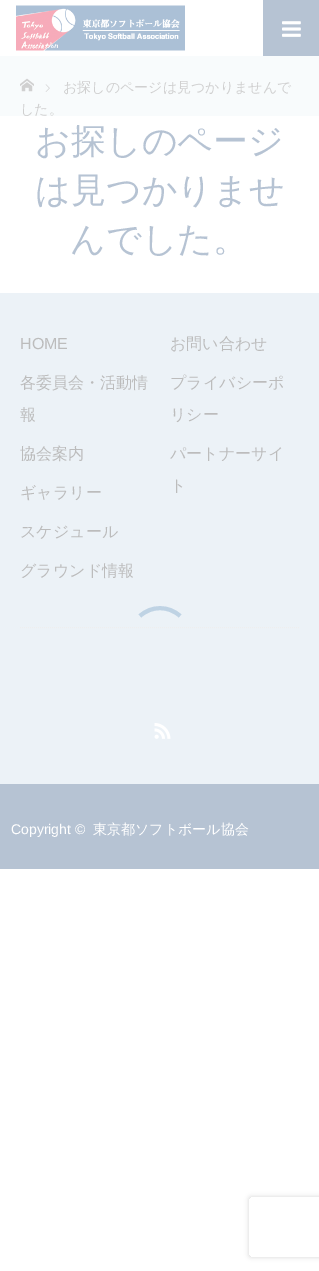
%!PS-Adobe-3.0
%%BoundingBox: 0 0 319 1271
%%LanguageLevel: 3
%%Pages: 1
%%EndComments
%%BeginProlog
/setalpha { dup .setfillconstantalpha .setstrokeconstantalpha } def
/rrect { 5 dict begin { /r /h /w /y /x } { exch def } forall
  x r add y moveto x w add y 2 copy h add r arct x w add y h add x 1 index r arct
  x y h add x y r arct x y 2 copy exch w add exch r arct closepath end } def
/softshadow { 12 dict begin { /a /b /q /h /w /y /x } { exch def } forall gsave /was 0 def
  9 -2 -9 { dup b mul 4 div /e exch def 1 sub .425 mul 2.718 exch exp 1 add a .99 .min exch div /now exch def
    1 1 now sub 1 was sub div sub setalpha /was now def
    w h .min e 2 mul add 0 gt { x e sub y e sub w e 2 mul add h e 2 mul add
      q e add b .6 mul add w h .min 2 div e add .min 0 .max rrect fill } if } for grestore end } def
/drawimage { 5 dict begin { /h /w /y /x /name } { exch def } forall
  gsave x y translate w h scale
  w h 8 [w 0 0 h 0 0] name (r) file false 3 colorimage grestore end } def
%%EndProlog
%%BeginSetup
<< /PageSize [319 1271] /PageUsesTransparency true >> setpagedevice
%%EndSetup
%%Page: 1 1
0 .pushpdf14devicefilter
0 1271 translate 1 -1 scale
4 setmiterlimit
1 setgray
0 0 319 1271 rectfill
(images/1.raw) 16 5 169 46 drawimage
0.714 0.765 0.827 setrgbcolor
263 0 56 56 rectfill
(images/2.raw) 282 21 19 16 drawimage
0.973 0.984 0.988 setrgbcolor
0 56 319 60 rectfill
(images/3.raw) 20 78 14 14 drawimage
(images/4.raw) 45 84 5 8 drawimage
0.925 0.949 0.969 setrgbcolor
0 293 319 491 rectfill
0.933 setgray
[1 1] 0 setdash
newpath 20 627.5 moveto 299 627.5 lineto stroke
(images/5.raw) 154 723 17 16 drawimage
0.714 0.765 0.827 setrgbcolor
0 784 319 85 rectfill
0.749 0.827 0.894 setrgbcolor
4 setlinewidth
[] 0 setdash
newpath 140 616 moveto 151 605.5 169 605.5 180 616 curveto stroke
gsave
newpath 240 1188 moveto 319 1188 lineto 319 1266 lineto 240 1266 lineto closepath 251 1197 moveto 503 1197 lineto 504 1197 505 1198 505 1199 curveto 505 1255 lineto 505 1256 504 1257 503 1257 curveto 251 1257 lineto 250 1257 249 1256 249 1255 curveto 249 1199 lineto 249 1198 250 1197 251 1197 curveto closepath eoclip newpath
0.835 setgray
249 1197 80 60 2 2.5 1 softshadow
grestore
/WenQuanYiZenHei-Medium [14 0 0 -14 0 0] selectfont
0.816 setgray
63 92 moveto (お探しのページは見つかりませんで) show
20 114 moveto (した。) show
/WenQuanYiZenHei-Medium [35 0 0 -35 0 0] selectfont
0.714 0.765 0.827 setrgbcolor
35 153 moveto (お探しのページ) show
35 202 moveto (は見つかりませ) show
70 251 moveto (んでした。) show
/LiberationSans-Regular [16 0 0 -16 0 0] selectfont
0.737 setgray
20 349 moveto (HOME) show
/WenQuanYiZenHei-Medium [16 0 0 -16 0 0] selectfont
20 388 moveto (各委員会・活動情) show
20 420 moveto (報) show
20 459 moveto (協会案内) show
20 498 moveto (ギャラリー) show
20 537 moveto (スケジュール) show
20 576 moveto (グラウンド情報) show
170 349 moveto (お問い合わせ) show
170 388 moveto (プライバシーポ) show
170 420 moveto (リシー) show
170 459 moveto (パートナーサイ) show
170 491 moveto (ト) show
/LiberationSans-Regular [14 0 0 -14 0 0] selectfont
1 setgray
11 834 moveto (Copyright ©) show
/WenQuanYiZenHei-Medium [14 0 0 -14 0 0] selectfont
93 834 moveto (東京都ソフトボール協会) show
.poppdf14devicefilter showpage
%%EOF
